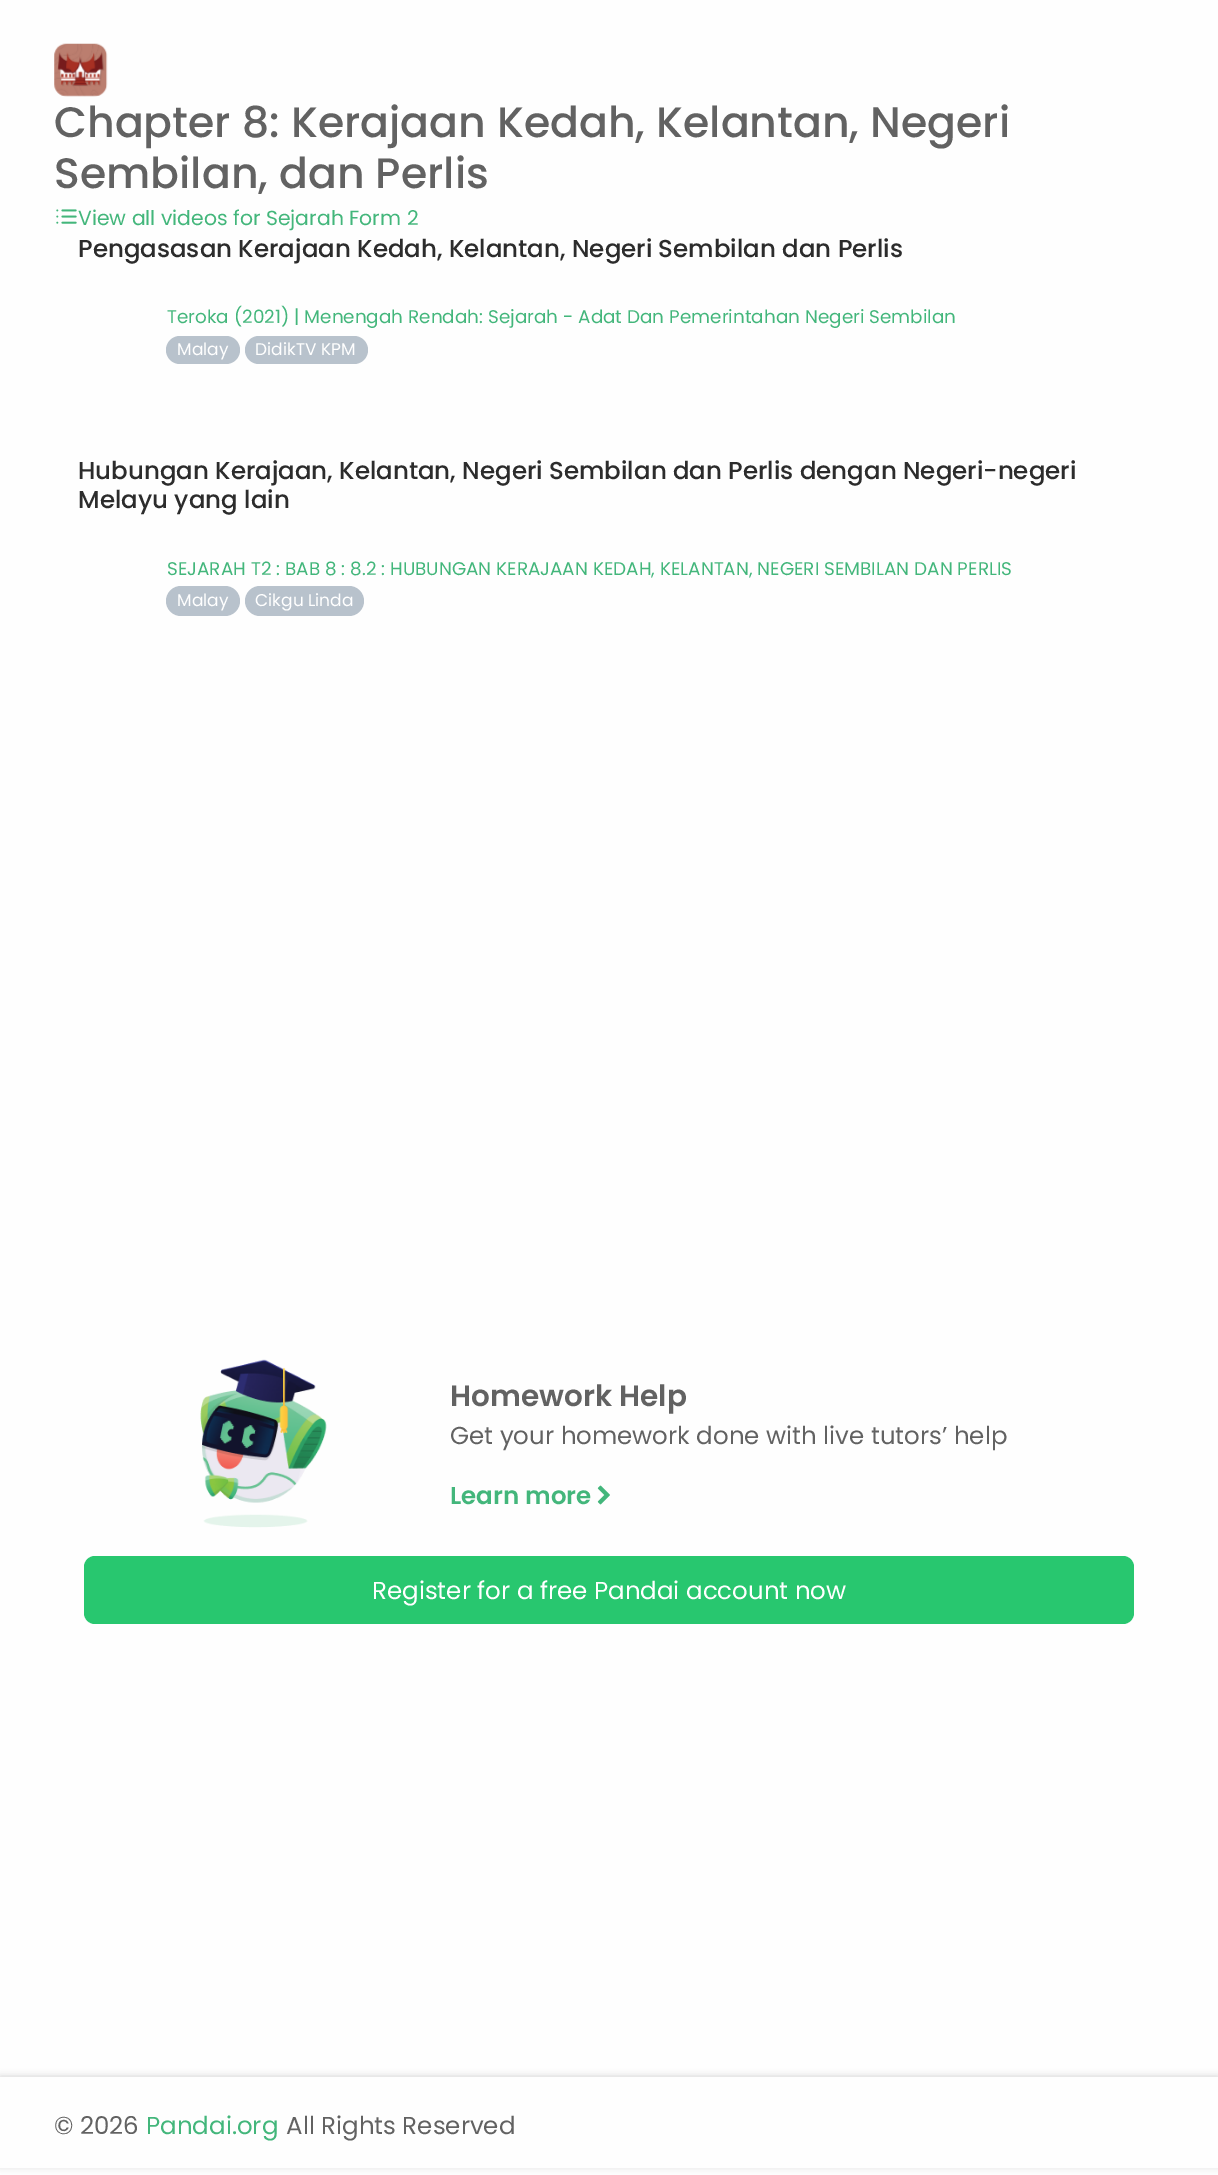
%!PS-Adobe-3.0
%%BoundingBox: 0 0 1218 2175
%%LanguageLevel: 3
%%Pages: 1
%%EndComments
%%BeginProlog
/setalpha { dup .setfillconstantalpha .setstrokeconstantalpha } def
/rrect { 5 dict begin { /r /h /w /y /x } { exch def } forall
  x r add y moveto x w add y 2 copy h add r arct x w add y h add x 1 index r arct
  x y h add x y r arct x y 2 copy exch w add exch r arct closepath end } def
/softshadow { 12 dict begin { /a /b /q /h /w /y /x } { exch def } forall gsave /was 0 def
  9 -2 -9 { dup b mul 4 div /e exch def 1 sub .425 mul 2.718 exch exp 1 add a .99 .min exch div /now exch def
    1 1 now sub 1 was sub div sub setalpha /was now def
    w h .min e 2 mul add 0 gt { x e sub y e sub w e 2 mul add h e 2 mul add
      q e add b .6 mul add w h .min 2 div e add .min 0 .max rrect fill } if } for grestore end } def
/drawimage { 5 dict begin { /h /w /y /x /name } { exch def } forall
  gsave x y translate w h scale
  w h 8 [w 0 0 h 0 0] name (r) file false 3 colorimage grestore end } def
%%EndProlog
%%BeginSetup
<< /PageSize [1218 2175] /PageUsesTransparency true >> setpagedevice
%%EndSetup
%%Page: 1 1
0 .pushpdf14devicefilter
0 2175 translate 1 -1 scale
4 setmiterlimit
0.996 setgray
0 0 1218 2175 rectfill
(images/1.raw) 54 43 54 54 drawimage
(images/2.raw) 56 209 21 15 drawimage
0.722 0.761 0.8 setrgbcolor
166 336 74 28 14 rrect fill
245 336 123 28 14 rrect fill
166 586 74 30 15 rrect fill
245 586 119 30 15 rrect fill
(images/3.raw) 200 1359 127 169 drawimage
(images/4.raw) 597 1485 13 20 drawimage
0.157 0.78 0.435 setrgbcolor
84 1556 1050 68 11 rrect fill
gsave
newpath 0 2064 moveto 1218 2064 lineto 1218 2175 lineto 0 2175 lineto closepath 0 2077 moveto 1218 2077 lineto 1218 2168 lineto 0 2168 lineto closepath eoclip newpath
0 setgray
0 2076 1218 91 0 3.5 0.15 softshadow
grestore
/Poppins-Medium [42.6 0 0 -42.6 0 0] selectfont
0.384 setgray
54 137 moveto (Chapter 8: Kerajaan Kedah, Kelantan, Negeri) show
54 188 moveto (Sembilan, dan Perlis) show
/Poppins-Regular [20.4 0 0 -20.4 0 0] selectfont
0.263 0.714 0.482 setrgbcolor
78 225 moveto (View all videos for Sejarah Form 2) show
/Poppins-Medium [24.5 0 0 -24.5 0 0] selectfont
0.173 setgray
78 257 moveto (Pengasasan Kerajaan Kedah, Kelantan, Negeri Sembilan dan Perlis) show
/Poppins-Regular [18.4 0 0 -18.4 0 0] selectfont
0.263 0.714 0.482 setrgbcolor
167 323 moveto (Teroka \(2021\) | Menengah Rendah: Sejarah - Adat Dan Pemerintahan Negeri Sembilan) show
/Poppins-Regular [17 0 0 -17 0 0] selectfont
1 setgray
177 355 moveto (Malay) show
255 355 moveto (DidikTV KPM) show
/Poppins-Medium [24.5 0 0 -24.5 0 0] selectfont
0.173 setgray
78 479 moveto (Hubungan Kerajaan, Kelantan, Negeri Sembilan dan Perlis dengan Negeri-negeri) show
78 508 moveto (Melayu yang lain) show
/Poppins-Regular [18.4 0 0 -18.4 0 0] selectfont
0.263 0.714 0.482 setrgbcolor
167 575 moveto (SEJARAH T2 : BAB 8 : 8.2 : HUBUNGAN KERAJAAN KEDAH, KELANTAN, NEGERI SEMBILAN DAN PERLIS) show
/Poppins-Regular [17 0 0 -17 0 0] selectfont
1 setgray
177 606 moveto (Malay) show
255 606 moveto (Cikgu Linda) show
/Poppins-SemiBold [29.5 0 0 -29.5 0 0] selectfont
0.384 setgray
450 1406 moveto (Homework Help) show
/Poppins-Regular [24.5 0 0 -24.5 0 0] selectfont
450 1444 moveto (Get your homework done with live tutors’ help) show
/Poppins-SemiBold [24.5 0 0 -24.5 0 0] selectfont
0.263 0.714 0.482 setrgbcolor
450 1504 moveto (Learn more) show
/Poppins-Regular [24.5 0 0 -24.5 0 0] selectfont
1 setgray
372 1599 moveto (Register for a free Pandai account now) show
0.384 setgray
54 2134 moveto (© 2026) show
0.263 0.714 0.482 setrgbcolor
146 2134 moveto (Pandai.org) show
0.384 setgray
286 2134 moveto (All Rights Reserved) show
.poppdf14devicefilter showpage
%%EOF
